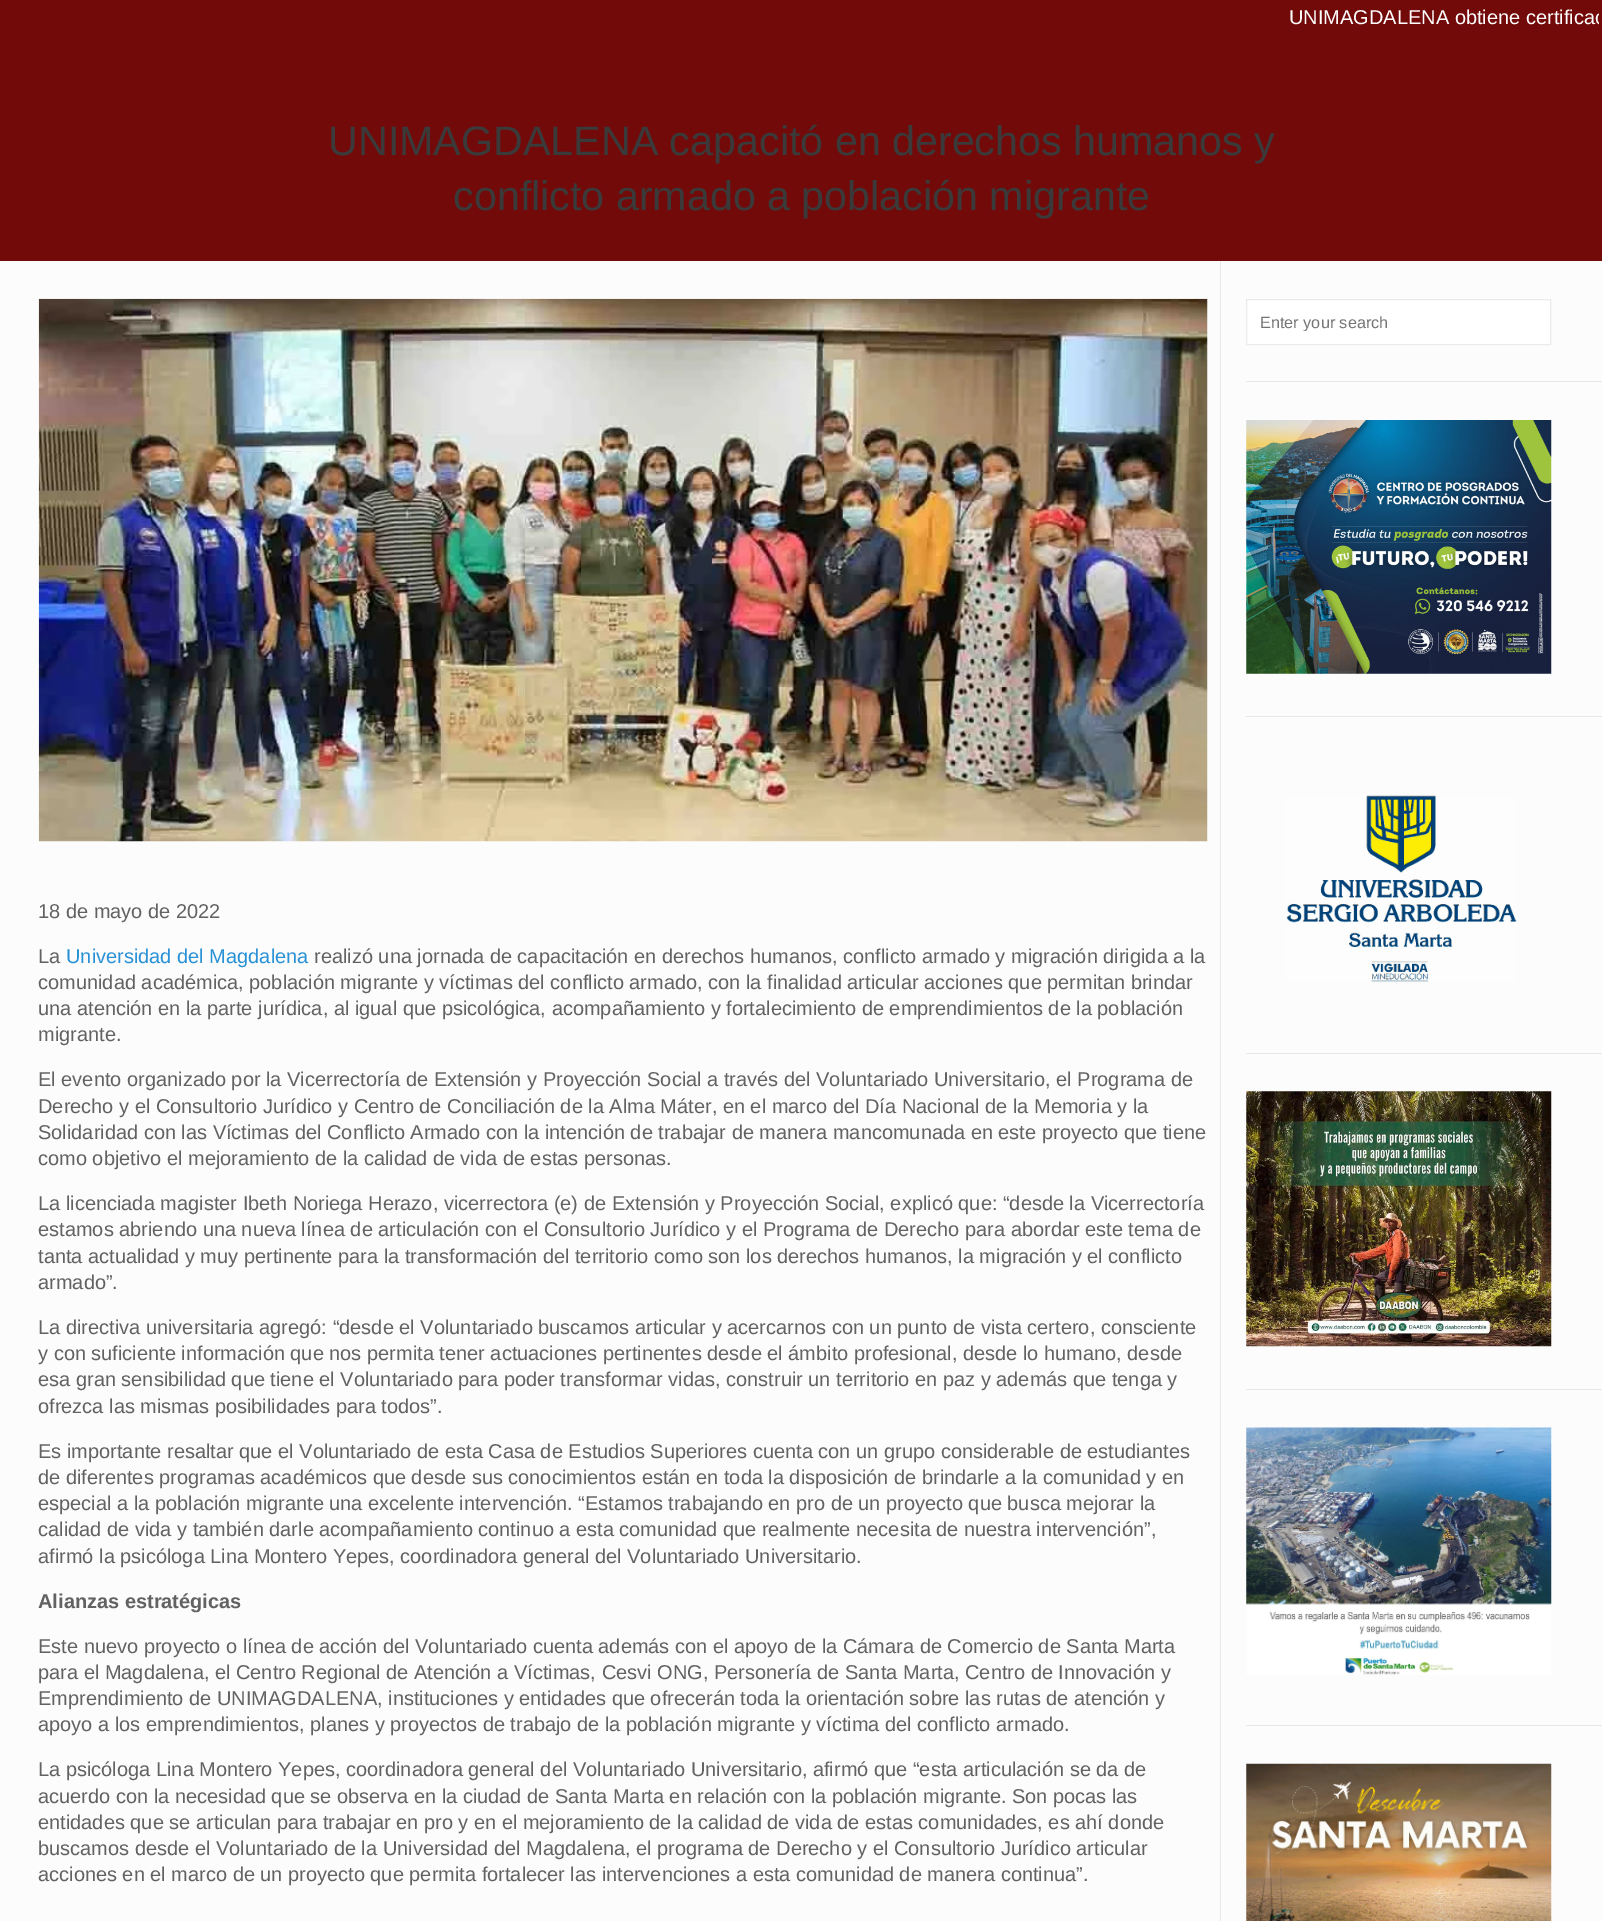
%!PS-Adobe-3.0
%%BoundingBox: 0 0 1602 1921
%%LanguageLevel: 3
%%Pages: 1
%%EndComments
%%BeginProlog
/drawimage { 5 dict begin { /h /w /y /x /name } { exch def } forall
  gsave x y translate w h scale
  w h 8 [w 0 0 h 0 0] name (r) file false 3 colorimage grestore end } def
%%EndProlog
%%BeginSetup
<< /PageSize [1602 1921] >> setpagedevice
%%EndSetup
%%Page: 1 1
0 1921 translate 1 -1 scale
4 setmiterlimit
0.988 setgray
0 0 1602 1921 rectfill
0.451 0.039 0.039 setrgbcolor
0 0 1602 261 rectfill
0.91 setgray
1220 261 1 1660 rectfill
1 setgray
newpath 1246.5 299.5 moveto 1550.5 299.5 lineto 1550.5 344.5 lineto 1246.5 344.5 lineto closepath gsave fill grestore
0.922 setgray
stroke
0.91 setgray
1246 381 356 1 rectfill
(images/1.raw) 1246 420 306 254 drawimage
1246 716 356 1 rectfill
(images/2.raw) 1286 795 231 187 drawimage
1246 1053 356 1 rectfill
(images/3.raw) 1246 1091 306 256 drawimage
1246 1389 356 1 rectfill
(images/4.raw) 1246 1427 306 248 drawimage
1246 1725 356 1 rectfill
(images/5.raw) 1246 1763 306 158 drawimage
(images/6.raw) 38 298 1170 544 drawimage
gsave
4 4 1595 26 rectclip
/LiberationSans-Regular [20 0 0 -20 0 0] selectfont
1 setgray
1289 24 moveto (UNIMAGDALENA obtiene certificac) show
grestore
/LiberationSans-Regular [41.25 0 0 -41.25 0 0] selectfont
0.227 setgray
328 155 moveto (UNIMAGDALENA capacitó en derechos humanos y) show
453 210 moveto (conflicto armado a población migrante) show
gsave
1260 313 278 18 rectclip
/LiberationSans-Regular [16.25 0 0 -16.25 0 0] selectfont
0.459 setgray
1260 328 moveto (Enter your search) show
grestore
/LiberationSans-Regular [20 0 0 -20 0 0] selectfont
0.384 setgray
38 918 moveto (18 de mayo de 2022) show
38 963 moveto (La) show
0.161 0.569 0.839 setrgbcolor
66 963 moveto (Universidad del Magdalena) show
0.384 setgray
314 963 moveto (realizó una jornada de capacitación en derechos humanos, conflicto armado y migración dirigida a la) show
38 989 moveto (comunidad académica, población migrante y víctimas del conflicto armado, con la finalidad articular acciones que permitan brindar) show
38 1015 moveto (una atención en la parte jurídica, al igual que psicológica, acompañamiento y fortalecimiento de emprendimientos de la población) show
38 1041 moveto (migrante.) show
38 1086 moveto (El evento organizado por la Vicerrectoría de Extensión y Proyección Social a través del Voluntariado Universitario, el Programa de) show
38 1113 moveto (Derecho y el Consultorio Jurídico y Centro de Conciliación de la Alma Máter, en el marco del Día Nacional de la Memoria y la) show
38 1139 moveto (Solidaridad con las Víctimas del Conflicto Armado con la intención de trabajar de manera mancomunada en este proyecto que tiene) show
38 1165 moveto (como objetivo el mejoramiento de la calidad de vida de estas personas.) show
38 1210 moveto (La licenciada magister Ibeth Noriega Herazo, vicerrectora \(e\) de Extensión y Proyección Social, explicó que: “desde la Vicerrectoría) show
38 1236 moveto (estamos abriendo una nueva línea de articulación con el Consultorio Jurídico y el Programa de Derecho para abordar este tema de) show
38 1263 moveto (tanta actualidad y muy pertinente para la transformación del territorio como son los derechos humanos, la migración y el conflicto) show
38 1289 moveto (armado”.) show
38 1334 moveto (La directiva universitaria agregó: “desde el Voluntariado buscamos articular y acercarnos con un punto de vista certero, consciente) show
38 1360 moveto (y con suficiente información que nos permita tener actuaciones pertinentes desde el ámbito profesional, desde lo humano, desde) show
38 1386 moveto (esa gran sensibilidad que tiene el Voluntariado para poder transformar vidas, construir un territorio en paz y además que tenga y) show
38 1413 moveto (ofrezca las mismas posibilidades para todos”.) show
38 1458 moveto (Es importante resaltar que el Voluntariado de esta Casa de Estudios Superiores cuenta con un grupo considerable de estudiantes) show
38 1484 moveto (de diferentes programas académicos que desde sus conocimientos están en toda la disposición de brindarle a la comunidad y en) show
38 1510 moveto (especial a la población migrante una excelente intervención. “Estamos trabajando en pro de un proyecto que busca mejorar la) show
38 1536 moveto (calidad de vida y también darle acompañamiento continuo a esta comunidad que realmente necesita de nuestra intervención”,) show
38 1563 moveto (afirmó la psicóloga Lina Montero Yepes, coordinadora general del Voluntariado Universitario.) show
/LiberationSans-Bold [20 0 0 -20 0 0] selectfont
38 1608 moveto (Alianzas estratégicas) show
/LiberationSans-Regular [20 0 0 -20 0 0] selectfont
38 1653 moveto (Este nuevo proyecto o línea de acción del Voluntariado cuenta además con el apoyo de la Cámara de Comercio de Santa Marta) show
38 1679 moveto (para el Magdalena, el Centro Regional de Atención a Víctimas, Cesvi ONG, Personería de Santa Marta, Centro de Innovación y) show
38 1705 moveto (Emprendimiento de UNIMAGDALENA, instituciones y entidades que ofrecerán toda la orientación sobre las rutas de atención y) show
38 1731 moveto (apoyo a los emprendimientos, planes y proyectos de trabajo de la población migrante y víctima del conflicto armado.) show
38 1776 moveto (La psicóloga Lina Montero Yepes, coordinadora general del Voluntariado Universitario, afirmó que “esta articulación se da de) show
38 1803 moveto (acuerdo con la necesidad que se observa en la ciudad de Santa Marta en relación con la población migrante. Son pocas las) show
38 1829 moveto (entidades que se articulan para trabajar en pro y en el mejoramiento de la calidad de vida de estas comunidades, es ahí donde) show
38 1855 moveto (buscamos desde el Voluntariado de la Universidad del Magdalena, el programa de Derecho y el Consultorio Jurídico articular) show
38 1881 moveto (acciones en el marco de un proyecto que permita fortalecer las intervenciones a esta comunidad de manera continua”.) show
showpage
%%EOF
